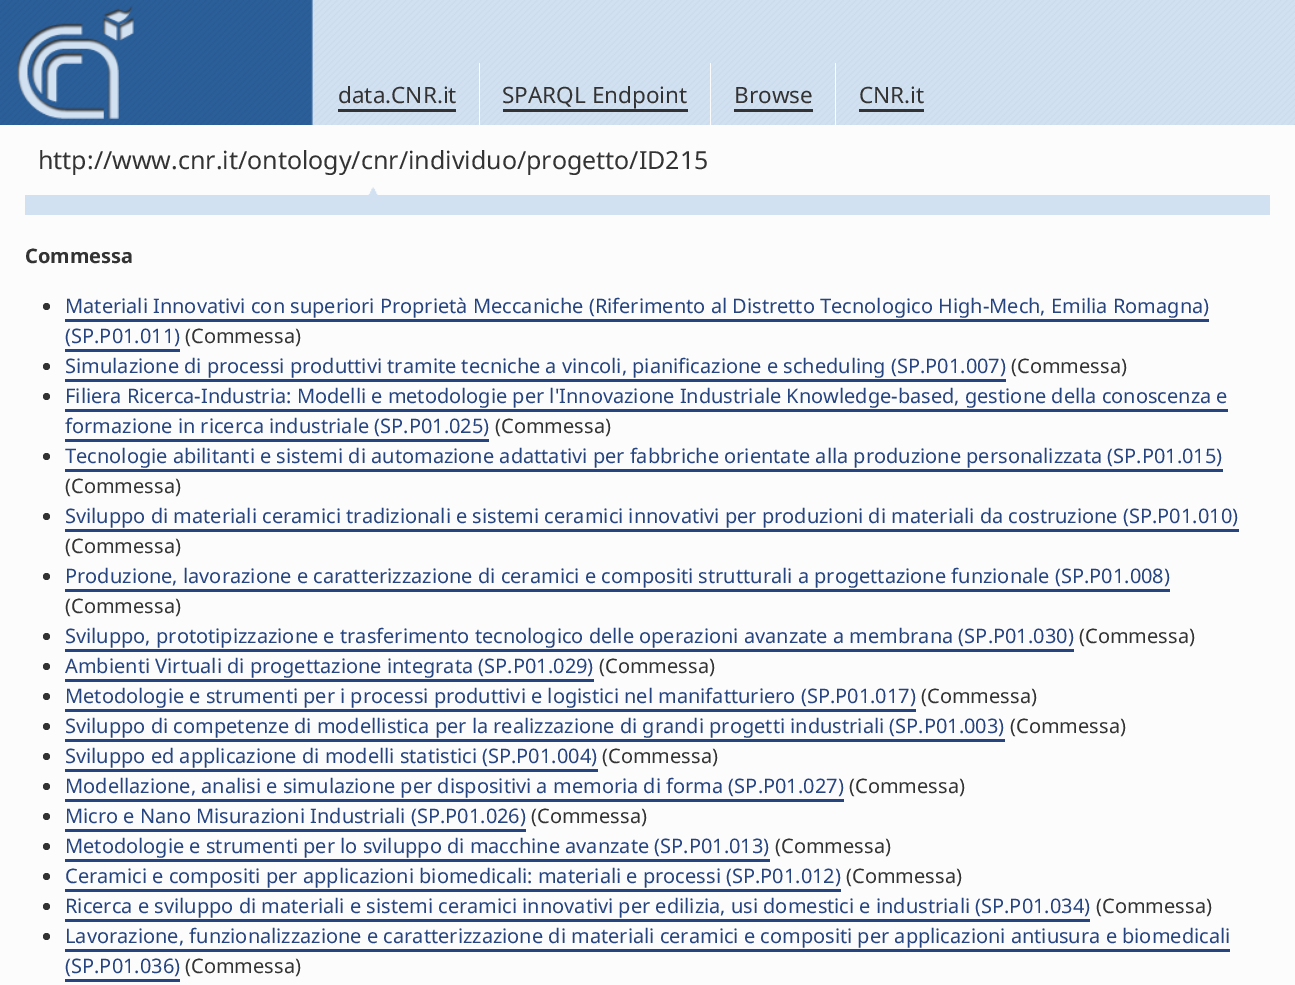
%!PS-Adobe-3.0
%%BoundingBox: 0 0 1295 985
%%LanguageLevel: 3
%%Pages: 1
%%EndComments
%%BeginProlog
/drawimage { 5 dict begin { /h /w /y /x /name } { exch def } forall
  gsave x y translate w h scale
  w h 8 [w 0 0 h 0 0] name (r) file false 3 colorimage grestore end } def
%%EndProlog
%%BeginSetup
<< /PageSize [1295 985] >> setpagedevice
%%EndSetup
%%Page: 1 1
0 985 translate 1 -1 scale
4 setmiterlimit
0.988 setgray
0 0 1295 985 rectfill
(images/1.raw) 312 0 983 125 drawimage
(images/2.raw) 0 0 313 125 drawimage
0.384 setgray
311 0 1 125 rectfill
0.2 setgray
338 109 118 3 rectfill
0.988 setgray
479 63 1 62 rectfill
0.2 setgray
503 109 185 3 rectfill
0.988 setgray
710 63 1 62 rectfill
0.2 setgray
734 109 79 3 rectfill
0.988 setgray
835 63 1 62 rectfill
0.2 setgray
859 109 65 3 rectfill
(images/3.raw) 368 187 10 8 drawimage
0.824 0.882 0.949 setrgbcolor
25 195 1245 20 rectfill
0.2 setgray
newpath 46.5 306.5 3.5 0 360 arc closepath fill
0.149 0.267 0.502 setrgbcolor
65 319 1144 3 rectfill
65 349 115 3 rectfill
0.2 setgray
newpath 46.5 366.5 3.5 0 360 arc closepath fill
0.149 0.267 0.502 setrgbcolor
65 379 941 3 rectfill
0.2 setgray
newpath 46.5 396.5 3.5 0 360 arc closepath fill
0.149 0.267 0.502 setrgbcolor
65 409 1163 3 rectfill
65 439 424 3 rectfill
0.2 setgray
newpath 46.5 456.5 3.5 0 360 arc closepath fill
0.149 0.267 0.502 setrgbcolor
65 469 1158 3 rectfill
0.2 setgray
newpath 46.5 516.5 3.5 0 360 arc closepath fill
0.149 0.267 0.502 setrgbcolor
65 529 1174 3 rectfill
0.2 setgray
newpath 46.5 576.5 3.5 0 360 arc closepath fill
0.149 0.267 0.502 setrgbcolor
65 589 1105 3 rectfill
0.2 setgray
newpath 46.5 636.5 3.5 0 360 arc closepath fill
0.149 0.267 0.502 setrgbcolor
65 649 1009 3 rectfill
0.2 setgray
newpath 46.5 666.5 3.5 0 360 arc closepath fill
0.149 0.267 0.502 setrgbcolor
65 679 529 3 rectfill
0.2 setgray
newpath 46.5 696.5 3.5 0 360 arc closepath fill
0.149 0.267 0.502 setrgbcolor
65 709 851 3 rectfill
0.2 setgray
newpath 46.5 726.5 3.5 0 360 arc closepath fill
0.149 0.267 0.502 setrgbcolor
65 739 940 3 rectfill
0.2 setgray
newpath 46.5 756.5 3.5 0 360 arc closepath fill
0.149 0.267 0.502 setrgbcolor
65 769 533 3 rectfill
0.2 setgray
newpath 46.5 786.5 3.5 0 360 arc closepath fill
0.149 0.267 0.502 setrgbcolor
65 799 779 3 rectfill
0.2 setgray
newpath 46.5 816.5 3.5 0 360 arc closepath fill
0.149 0.267 0.502 setrgbcolor
65 829 461 3 rectfill
0.2 setgray
newpath 46.5 846.5 3.5 0 360 arc closepath fill
0.149 0.267 0.502 setrgbcolor
65 859 705 3 rectfill
0.2 setgray
newpath 46.5 876.5 3.5 0 360 arc closepath fill
0.149 0.267 0.502 setrgbcolor
65 889 776 3 rectfill
0.2 setgray
newpath 46.5 906.5 3.5 0 360 arc closepath fill
0.149 0.267 0.502 setrgbcolor
65 919 1025 3 rectfill
0.2 setgray
newpath 46.5 936.5 3.5 0 360 arc closepath fill
0.149 0.267 0.502 setrgbcolor
65 949 1165 3 rectfill
65 979 115 3 rectfill
/NotoSans-Regular [22.5 0 0 -22.5 0 0] selectfont
0.2 setgray
338 103 moveto (data.CNR.it) show
502 103 moveto (SPARQL Endpoint) show
734 103 moveto (Browse) show
859 103 moveto (CNR.it) show
/NotoSans-Regular [25 0 0 -25 0 0] selectfont
38 169 moveto (http://www.cnr.it/ontology/cnr/individuo/progetto/ID215) show
/NotoSans-Bold [20 0 0 -20 0 0] selectfont
25 263 moveto (Commessa) show
/NotoSans-Regular [20 0 0 -20 0 0] selectfont
0.149 0.267 0.502 setrgbcolor
65 313 moveto (Materiali Innovativi con superiori Proprietà Meccaniche \(Riferimento al Distretto Tecnologico High-Mech, Emilia Romagna\)) show
65 343 moveto (\(SP.P01.011\)) show
0.2 setgray
185 343 moveto (\(Commessa\)) show
0.149 0.267 0.502 setrgbcolor
65 373 moveto (Simulazione di processi produttivi tramite tecniche a vincoli, pianificazione e scheduling \(SP.P01.007\)) show
0.2 setgray
1011 373 moveto (\(Commessa\)) show
0.149 0.267 0.502 setrgbcolor
65 403 moveto (Filiera Ricerca-Industria: Modelli e metodologie per l'Innovazione Industriale Knowledge-based, gestione della conoscenza e) show
65 433 moveto (formazione in ricerca industriale \(SP.P01.025\)) show
0.2 setgray
495 433 moveto (\(Commessa\)) show
0.149 0.267 0.502 setrgbcolor
65 463 moveto (Tecnologie abilitanti e sistemi di automazione adattativi per fabbriche orientate alla produzione personalizzata \(SP.P01.015\)) show
0.2 setgray
65 493 moveto (\(Commessa\)) show
0.149 0.267 0.502 setrgbcolor
65 523 moveto (Sviluppo di materiali ceramici tradizionali e sistemi ceramici innovativi per produzioni di materiali da costruzione \(SP.P01.010\)) show
0.2 setgray
65 553 moveto (\(Commessa\)) show
0.149 0.267 0.502 setrgbcolor
65 583 moveto (Produzione, lavorazione e caratterizzazione di ceramici e compositi strutturali a progettazione funzionale \(SP.P01.008\)) show
0.2 setgray
65 613 moveto (\(Commessa\)) show
0.149 0.267 0.502 setrgbcolor
65 643 moveto (Sviluppo, prototipizzazione e trasferimento tecnologico delle operazioni avanzate a membrana \(SP.P01.030\)) show
0.2 setgray
1079 643 moveto (\(Commessa\)) show
0.149 0.267 0.502 setrgbcolor
65 673 moveto (Ambienti Virtuali di progettazione integrata \(SP.P01.029\)) show
0.2 setgray
599 673 moveto (\(Commessa\)) show
0.149 0.267 0.502 setrgbcolor
65 703 moveto (Metodologie e strumenti per i processi produttivi e logistici nel manifatturiero \(SP.P01.017\)) show
0.2 setgray
921 703 moveto (\(Commessa\)) show
0.149 0.267 0.502 setrgbcolor
65 733 moveto (Sviluppo di competenze di modellistica per la realizzazione di grandi progetti industriali \(SP.P01.003\)) show
0.2 setgray
1010 733 moveto (\(Commessa\)) show
0.149 0.267 0.502 setrgbcolor
65 763 moveto (Sviluppo ed applicazione di modelli statistici \(SP.P01.004\)) show
0.2 setgray
602 763 moveto (\(Commessa\)) show
0.149 0.267 0.502 setrgbcolor
65 793 moveto (Modellazione, analisi e simulazione per dispositivi a memoria di forma \(SP.P01.027\)) show
0.2 setgray
849 793 moveto (\(Commessa\)) show
0.149 0.267 0.502 setrgbcolor
65 823 moveto (Micro e Nano Misurazioni Industriali \(SP.P01.026\)) show
0.2 setgray
531 823 moveto (\(Commessa\)) show
0.149 0.267 0.502 setrgbcolor
65 853 moveto (Metodologie e strumenti per lo sviluppo di macchine avanzate \(SP.P01.013\)) show
0.2 setgray
775 853 moveto (\(Commessa\)) show
0.149 0.267 0.502 setrgbcolor
65 883 moveto (Ceramici e compositi per applicazioni biomedicali: materiali e processi \(SP.P01.012\)) show
0.2 setgray
846 883 moveto (\(Commessa\)) show
0.149 0.267 0.502 setrgbcolor
65 913 moveto (Ricerca e sviluppo di materiali e sistemi ceramici innovativi per edilizia, usi domestici e industriali \(SP.P01.034\)) show
0.2 setgray
1096 913 moveto (\(Commessa\)) show
0.149 0.267 0.502 setrgbcolor
65 943 moveto (Lavorazione, funzionalizzazione e caratterizzazione di materiali ceramici e compositi per applicazioni antiusura e biomedicali) show
65 973 moveto (\(SP.P01.036\)) show
0.2 setgray
185 973 moveto (\(Commessa\)) show
showpage
%%EOF
